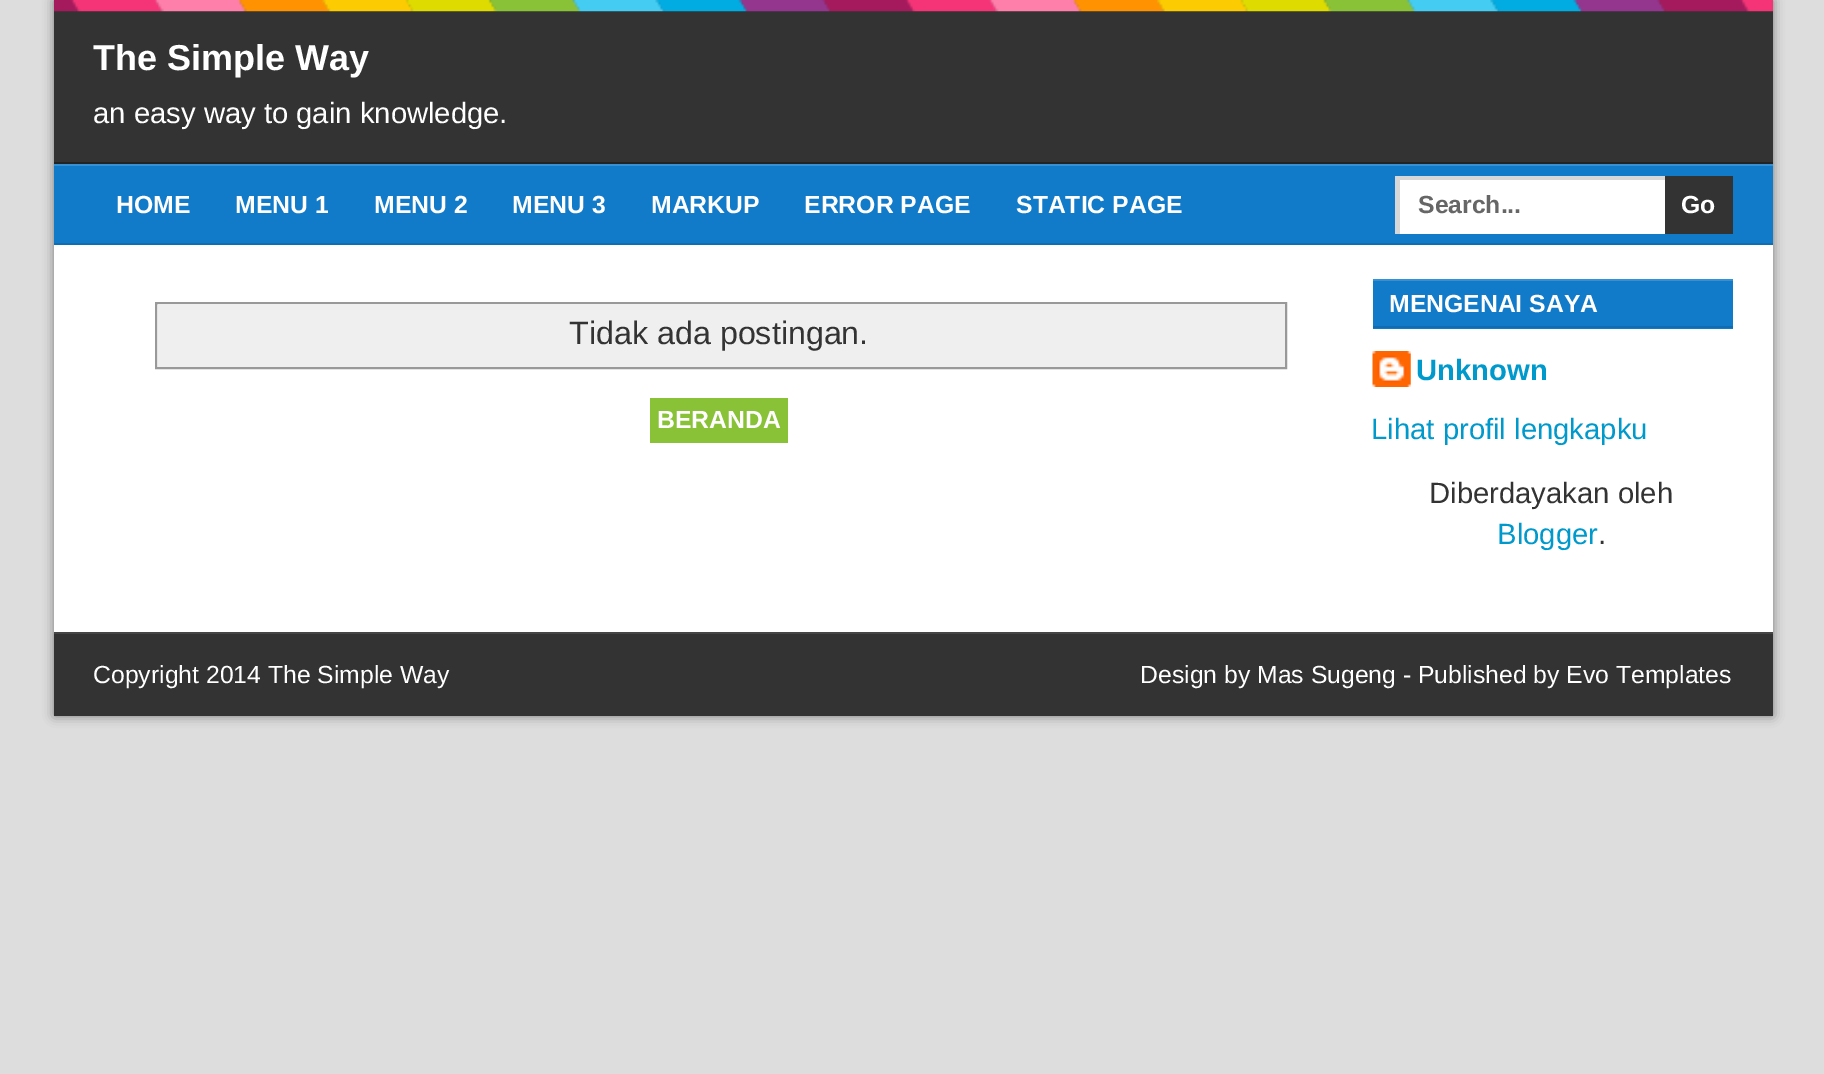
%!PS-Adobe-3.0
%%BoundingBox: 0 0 1824 1074
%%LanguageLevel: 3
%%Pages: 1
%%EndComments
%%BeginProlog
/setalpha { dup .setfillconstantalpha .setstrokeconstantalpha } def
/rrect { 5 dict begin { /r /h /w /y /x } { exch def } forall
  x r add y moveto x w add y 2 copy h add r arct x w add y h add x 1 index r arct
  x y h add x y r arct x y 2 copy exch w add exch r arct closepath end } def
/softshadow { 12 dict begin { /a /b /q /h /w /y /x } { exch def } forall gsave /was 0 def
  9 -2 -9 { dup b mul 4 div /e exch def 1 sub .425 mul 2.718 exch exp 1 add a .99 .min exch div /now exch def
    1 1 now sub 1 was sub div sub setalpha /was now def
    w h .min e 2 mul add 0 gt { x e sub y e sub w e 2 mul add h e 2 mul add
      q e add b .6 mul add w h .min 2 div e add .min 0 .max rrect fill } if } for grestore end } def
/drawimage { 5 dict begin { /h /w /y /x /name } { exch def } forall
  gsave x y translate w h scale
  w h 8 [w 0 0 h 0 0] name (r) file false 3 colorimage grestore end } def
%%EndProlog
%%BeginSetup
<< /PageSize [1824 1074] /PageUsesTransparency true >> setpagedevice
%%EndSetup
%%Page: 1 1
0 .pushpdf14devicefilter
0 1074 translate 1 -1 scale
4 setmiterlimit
0.867 setgray
0 0 1824 1074 rectfill
0.118 setgray
54 0 1719 716 0 5.5 0.52 softshadow
1 setgray
54 245 1719 387 rectfill
0.2 setgray
54 0 1719 162 rectfill
(images/1.raw) 54 0 1719 12 drawimage
0.137 setgray
54 162 1719 2 rectfill
0.067 0.478 0.788 setrgbcolor
54 166 1719 77 rectfill
0.212 0.565 0.831 setrgbcolor
54 164 1719 2 rectfill
0.059 0.427 0.702 setrgbcolor
54 243 1719 2 rectfill
1 setgray
1400 180 265 54 rectfill
gsave
1395 176 270 58 rectclip
0.843 setgray
newpath 1172 -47 moveto 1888 -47 lineto 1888 457 lineto 1172 457 lineto closepath 1400 180 moveto 1670 180 lineto 1670 238 lineto 1400 238 lineto closepath eofill
grestore
0.2 setgray
1665 176 68 58 rectfill
0.6 setgray
2 setlinewidth
156 303 1130 65 rectstroke
0.937 setgray
158 304 1127 63 rectfill
0.537 0.761 0.216 setrgbcolor
650 398 138 45 rectfill
0.067 0.478 0.788 setrgbcolor
1373 281 360 48 rectfill
0.212 0.565 0.831 setrgbcolor
1373 279 360 2 rectfill
0.059 0.427 0.702 setrgbcolor
1373 326 360 2 rectfill
(images/2.raw) 1372 351 39 36 drawimage
0.2 setgray
54 634 1719 82 rectfill
0.271 setgray
54 632 1719 2 rectfill
/LiberationSans-Bold [36 0 0 -36 0 0] selectfont
1 setgray
93 70 moveto (The Simple Way) show
/LiberationSans-Regular [29.25 0 0 -29.25 0 0] selectfont
93 123 moveto (an easy way to gain knowledge.) show
/LiberationSans-Bold [24.75 0 0 -24.75 0 0] selectfont
116 213 moveto (HOME) show
235 213 moveto (MENU 1) show
374 213 moveto (MENU 2) show
512 213 moveto (MENU 3) show
651 213 moveto (MARKUP) show
804 213 moveto (ERROR PAGE) show
1016 213 moveto (STATIC PAGE) show
0.4 setgray
1418 213 moveto (Search...) show
1 setgray
1681 213 moveto (Go) show
/LiberationSans-Regular [32.25 0 0 -32.25 0 0] selectfont
0.2 setgray
569 344 moveto (Tidak ada postingan.) show
/LiberationSans-Bold [24.75 0 0 -24.75 0 0] selectfont
1 setgray
657 428 moveto (BERANDA) show
1389 312 moveto (MENGENAI SAYA) show
/LiberationSans-Bold [29.25 0 0 -29.25 0 0] selectfont
0 0.6 0.8 setrgbcolor
1416 380 moveto (Unknown) show
/LiberationSans-Regular [29.25 0 0 -29.25 0 0] selectfont
1371 439 moveto (Lihat profil lengkapku) show
0.2 setgray
1429 503 moveto (Diberdayakan oleh) show
0 0.6 0.8 setrgbcolor
1497 544 moveto (Blogger) show
0.2 setgray
1598 544 moveto (.) show
/LiberationSans-Regular [24.75 0 0 -24.75 0 0] selectfont
1 setgray
93 683 moveto (Copyright 2014 The Simple Way) show
1140 683 moveto (Design by Mas Sugeng - Published by Evo Templates) show
.poppdf14devicefilter showpage
%%EOF
